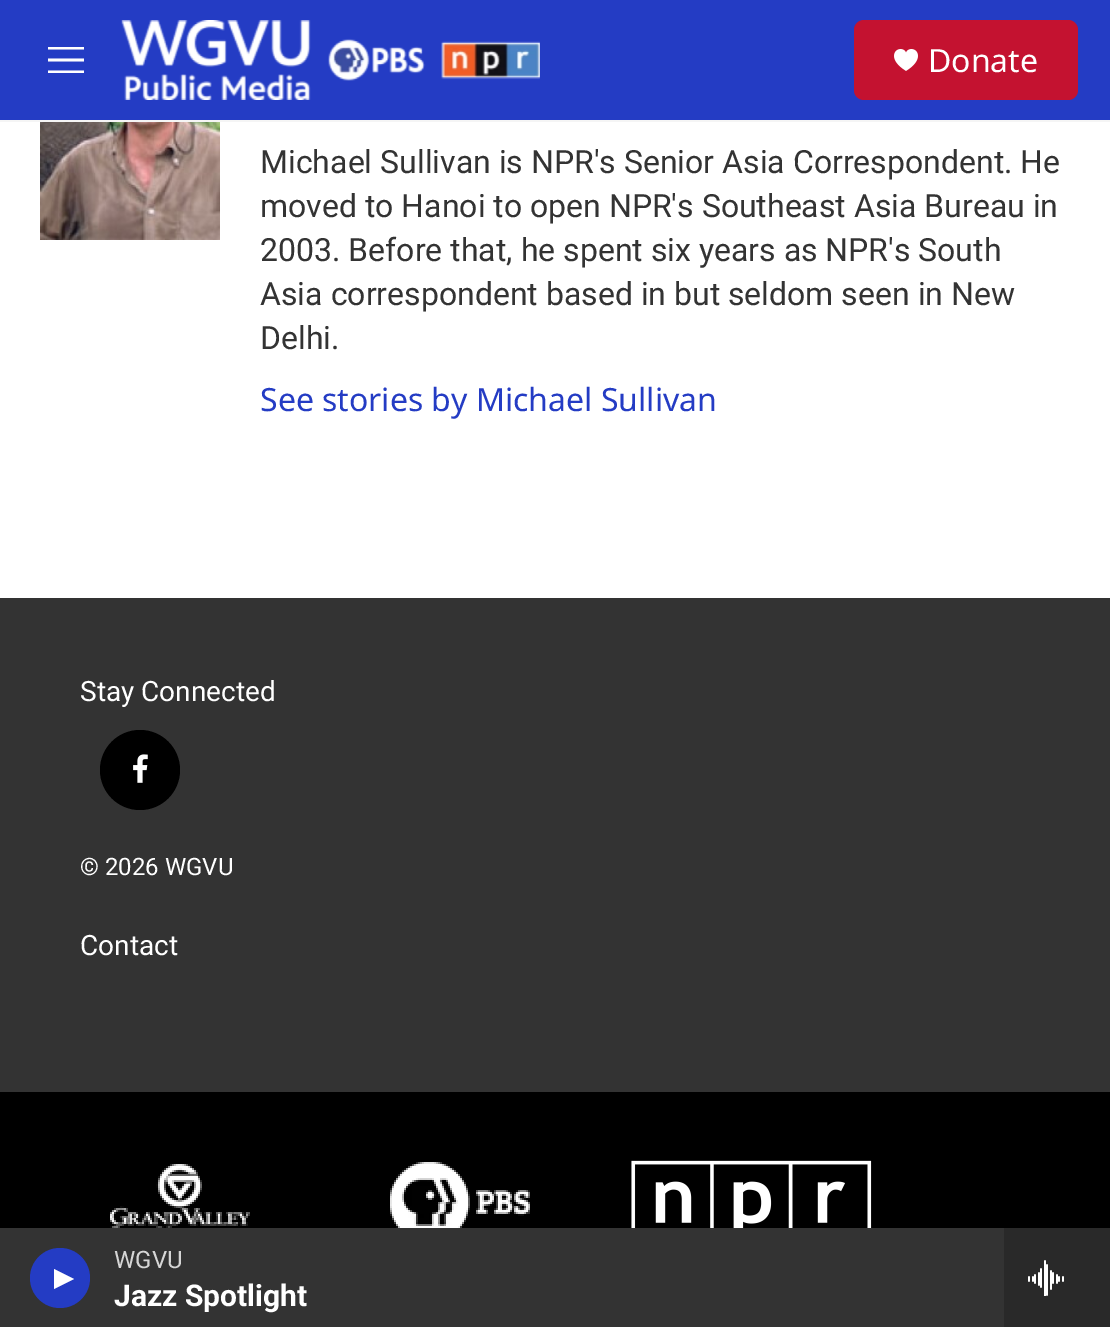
%!PS-Adobe-3.0
%%BoundingBox: 0 0 1110 1327
%%LanguageLevel: 3
%%Pages: 1
%%EndComments
%%BeginProlog
/rrect { 5 dict begin { /r /h /w /y /x } { exch def } forall
  x r add y moveto x w add y 2 copy h add r arct x w add y h add x 1 index r arct
  x y h add x y r arct x y 2 copy exch w add exch r arct closepath end } def
/drawimage { 5 dict begin { /h /w /y /x /name } { exch def } forall
  gsave x y translate w h scale
  w h 8 [w 0 0 h 0 0] name (r) file false 3 colorimage grestore end } def
%%EndProlog
%%BeginSetup
<< /PageSize [1110 1327] >> setpagedevice
%%EndSetup
%%Page: 1 1
0 1327 translate 1 -1 scale
4 setmiterlimit
1 setgray
0 0 1110 1327 rectfill
0.141 0.235 0.769 setrgbcolor
0 0 1110 120 rectfill
0.961 setgray
0 120 1110 2 rectfill
1 setgray
newpath 48 61.5 moveto 48 58.5 lineto 84 58.5 lineto 84 61.5 lineto closepath 48 49.5 moveto 48 47 lineto 84 47 lineto 84 49.5 lineto closepath 48 73 moveto 48 70.5 lineto 84 70.5 lineto 84 73 lineto closepath eofill
(images/1.raw) 121 20 419 80 drawimage
0.769 0.071 0.188 setrgbcolor
854 20 224 80 10 rrect fill
(images/2.raw) 894 49 24 22 drawimage
0.2 setgray
0 1228 1004 99 rectfill
0.141 0.235 0.769 setrgbcolor
newpath 60 1278 30 0 360 arc closepath fill
1 setgray
newpath 54 1269 moveto 74 1279 lineto 54 1289 lineto closepath fill
0.161 setgray
1004 1228 106 99 rectfill
(images/3.raw) 1028 1260 36 36 drawimage
(images/4.raw) 40 122 180 118 drawimage
0.2 setgray
0 598 1110 494 rectfill
0 setgray
newpath 140 770 40 0 360 arc closepath fill
(images/5.raw) 133 754 15 29 drawimage
0 1092 1110 136 rectfill
(images/6.raw) 110 1164 140 64 drawimage
(images/7.raw) 390 1162 140 66 drawimage
(images/8.raw) 631 1160 241 68 drawimage
/NotoSans-Regular [32 0 0 -32 0 0] selectfont
1 setgray
928 72 moveto (Donate) show
/Roboto-Regular [24 0 0 -24 0 0] selectfont
0.839 setgray
114 1268 moveto (WGVU) show
/Roboto-Bold [30 0 0 -30 0 0] selectfont
1 setgray
114 1306 moveto (Jazz Spotlight) show
/Roboto-Regular [32 0 0 -32 0 0] selectfont
0.2 setgray
260 173 moveto (Michael Sullivan is NPR's Senior Asia Correspondent. He) show
260 217 moveto (moved to Hanoi to open NPR's Southeast Asia Bureau in) show
260 261 moveto (2003. Before that, he spent six years as NPR's South) show
260 305 moveto (Asia correspondent based in but seldom seen in New) show
260 349 moveto (Delhi.) show
/NotoSans-Regular [32 0 0 -32 0 0] selectfont
0.141 0.235 0.769 setrgbcolor
260 411 moveto (See stories by Michael Sullivan) show
/Roboto-Regular [28 0 0 -28 0 0] selectfont
1 setgray
80 701 moveto (Stay Connected) show
/Roboto-Regular [24 0 0 -24 0 0] selectfont
80 875 moveto (© 2026 WGVU) show
/Roboto-Regular [28 0 0 -28 0 0] selectfont
80 955 moveto (Contact) show
showpage
%%EOF
